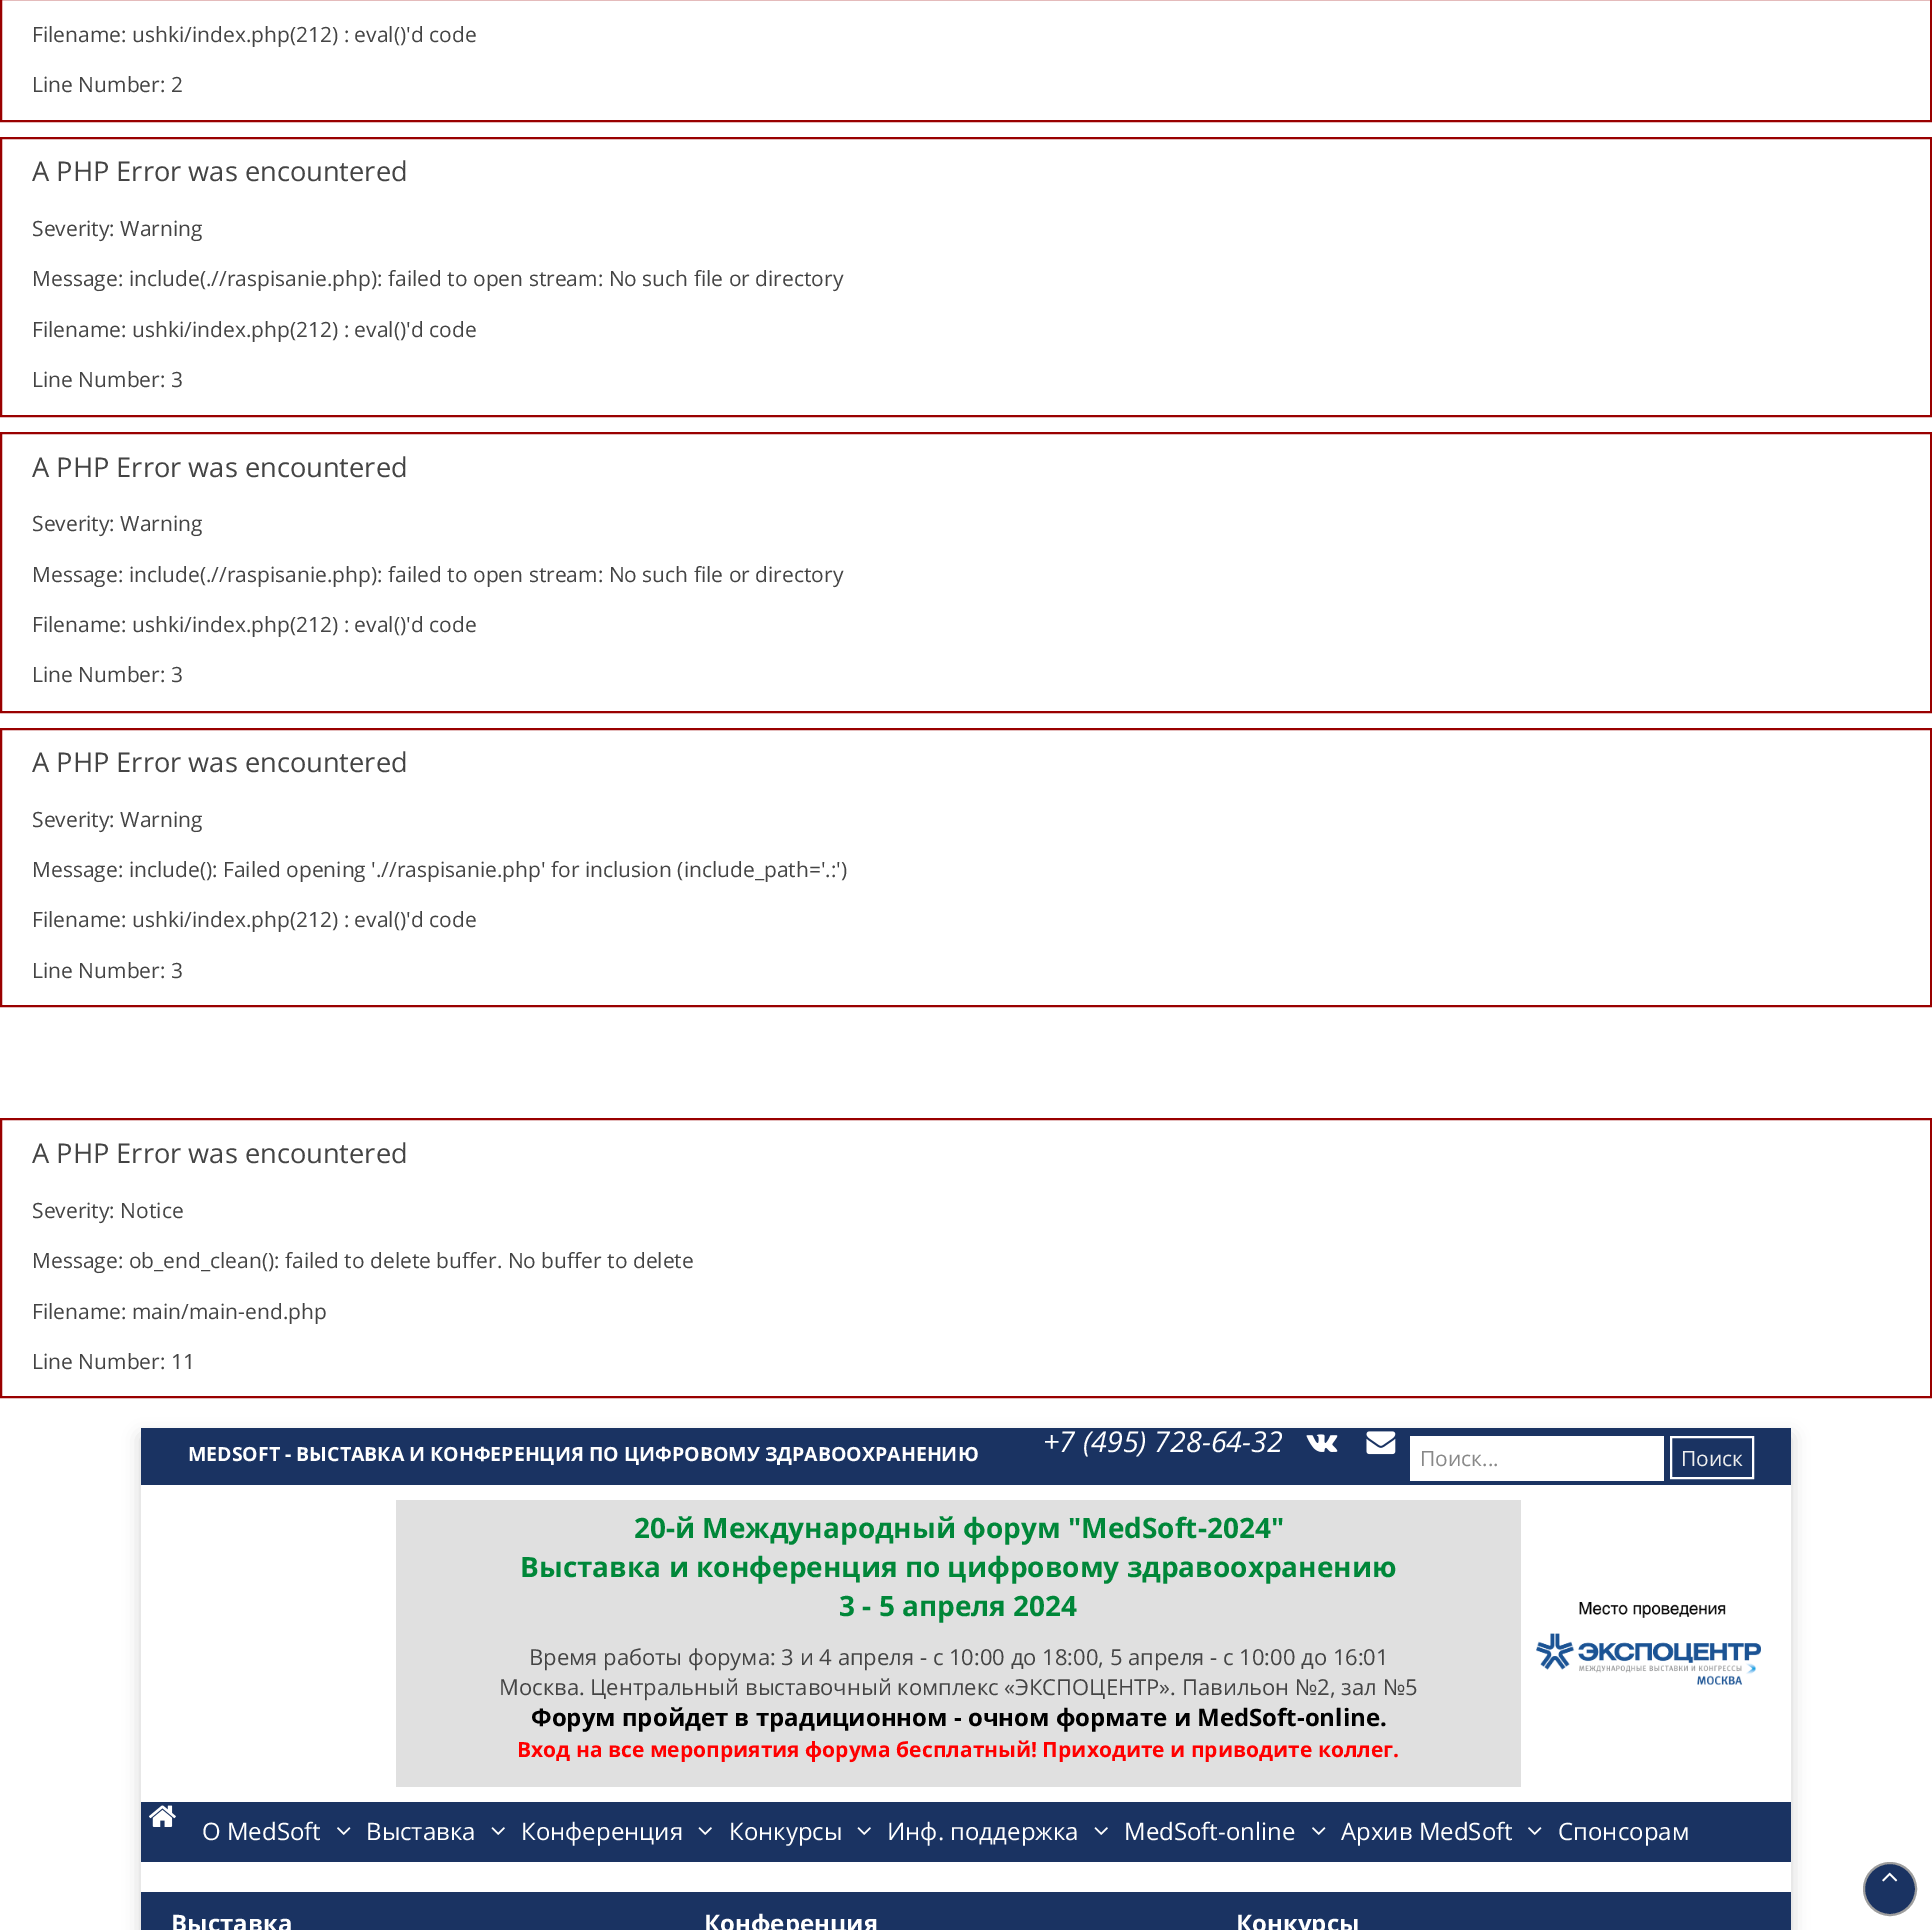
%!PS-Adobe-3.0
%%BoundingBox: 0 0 1932 1930
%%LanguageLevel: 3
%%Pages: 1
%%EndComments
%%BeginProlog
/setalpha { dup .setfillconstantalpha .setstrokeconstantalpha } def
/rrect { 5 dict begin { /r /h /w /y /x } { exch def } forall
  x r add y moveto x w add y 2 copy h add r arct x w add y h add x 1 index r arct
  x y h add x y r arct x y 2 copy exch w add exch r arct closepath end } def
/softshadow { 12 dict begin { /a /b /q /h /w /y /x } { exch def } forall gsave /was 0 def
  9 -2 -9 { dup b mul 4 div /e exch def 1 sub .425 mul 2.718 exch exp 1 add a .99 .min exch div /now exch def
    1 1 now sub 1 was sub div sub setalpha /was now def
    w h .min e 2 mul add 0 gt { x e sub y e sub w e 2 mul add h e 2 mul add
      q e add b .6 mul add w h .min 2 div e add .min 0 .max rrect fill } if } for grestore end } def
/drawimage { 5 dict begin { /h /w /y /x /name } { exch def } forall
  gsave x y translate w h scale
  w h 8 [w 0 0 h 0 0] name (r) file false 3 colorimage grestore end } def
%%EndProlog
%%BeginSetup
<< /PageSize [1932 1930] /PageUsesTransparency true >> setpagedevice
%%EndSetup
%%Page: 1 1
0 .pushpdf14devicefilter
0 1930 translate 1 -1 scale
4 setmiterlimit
1 setgray
0 0 1932 1930 rectfill
0.6 0 0 setrgbcolor
2 setlinewidth
1 -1 1930 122 rectstroke
1 138 1930 278 rectstroke
1 433 1930 279 rectstroke
1 729 1930 277 rectstroke
1 1119 1930 278 rectstroke
gsave
newpath 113 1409 moveto 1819 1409 lineto 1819 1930 lineto 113 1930 lineto closepath 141 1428 moveto 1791 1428 lineto 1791 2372 lineto 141 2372 lineto closepath eoclip newpath
0 setgray
141 1437 1650 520 0 9 0.18 softshadow
grestore
0.102 0.2 0.384 setrgbcolor
141 1428 1650 57 rectfill
(images/1.raw) 1306 1434 32 18 drawimage
(images/2.raw) 1366 1431 30 24 drawimage
1 setgray
1410 1436 254 45 rectfill
1671 1437 82 41 rectstroke
0.878 setgray
396 1500 1125 287 rectfill
(images/3.raw) 1536 1602 225 83 drawimage
0.102 0.2 0.384 setrgbcolor
141 1802 1650 60 rectfill
(images/4.raw) 149 1805 27 22 drawimage
(images/5.raw) 337 1827 14 8 drawimage
(images/6.raw) 491 1827 14 8 drawimage
(images/6.raw) 698 1827 14 8 drawimage
(images/6.raw) 857 1827 14 8 drawimage
(images/6.raw) 1094 1827 14 8 drawimage
(images/5.raw) 1312 1827 14 8 drawimage
(images/5.raw) 1528 1827 14 8 drawimage
141 1892 1650 38 rectfill
newpath 1890 1889 26 0 360 arc closepath gsave fill grestore
0.62 setgray
stroke
(images/7.raw) 1882 1872 16 10 drawimage
/OpenSans-Regular [21 0 0 -21 0 0] selectfont
0.267 setgray
32 42 moveto (Filename: ushki/index.php\(212\) : eval\(\)'d code) show
32 92 moveto (Line Number: 2) show
/OpenSans-Regular [27.25 0 0 -27.25 0 0] selectfont
32 181 moveto (A PHP Error was encountered) show
/OpenSans-Regular [21 0 0 -21 0 0] selectfont
32 236 moveto (Severity: Warning) show
32 286 moveto (Message: include\(.//raspisanie.php\): failed to open stream: No such file or directory) show
32 337 moveto (Filename: ushki/index.php\(212\) : eval\(\)'d code) show
32 387 moveto (Line Number: 3) show
/OpenSans-Regular [27.25 0 0 -27.25 0 0] selectfont
32 477 moveto (A PHP Error was encountered) show
/OpenSans-Regular [21 0 0 -21 0 0] selectfont
32 531 moveto (Severity: Warning) show
32 582 moveto (Message: include\(.//raspisanie.php\): failed to open stream: No such file or directory) show
32 632 moveto (Filename: ushki/index.php\(212\) : eval\(\)'d code) show
32 682 moveto (Line Number: 3) show
/OpenSans-Regular [27.25 0 0 -27.25 0 0] selectfont
32 772 moveto (A PHP Error was encountered) show
/OpenSans-Regular [21 0 0 -21 0 0] selectfont
32 827 moveto (Severity: Warning) show
32 877 moveto (Message: include\(\): Failed opening './/raspisanie.php' for inclusion \(include_path='.:'\)) show
32 927 moveto (Filename: ushki/index.php\(212\) : eval\(\)'d code) show
32 978 moveto (Line Number: 3) show
/OpenSans-Regular [27.25 0 0 -27.25 0 0] selectfont
32 1163 moveto (A PHP Error was encountered) show
/OpenSans-Regular [21 0 0 -21 0 0] selectfont
32 1218 moveto (Severity: Notice) show
32 1268 moveto (Message: ob_end_clean\(\): failed to delete buffer. No buffer to delete) show
32 1319 moveto (Filename: main/main-end.php) show
32 1369 moveto (Line Number: 11) show
/OpenSans-Bold [19.5 0 0 -19.5 0 0] selectfont
1 setgray
188 1461 moveto (MEDSOFT - ВЫСТАВКА И КОНФЕРЕНЦИЯ ПО ЦИФРОВОМУ ЗДРАВООХРАНЕНИЮ) show
/OpenSans-Italic [28.75 0 0 -28.75 0 0] selectfont
1043 1452 moveto (+7 \(495\) 728-64-32) show
/OpenSans-Regular [21 0 0 -21 0 0] selectfont
0.533 setgray
1420 1466 moveto (Поиск...) show
0.933 setgray
1681 1466 moveto (Поиск) show
/OpenSans-Bold [28 0 0 -28 0 0] selectfont
0 0.529 0.224 setrgbcolor
634 1538 moveto (20-й Международный форум "MedSoft-2024") show
520 1577 moveto (Выставка и конференция по цифровому здравоохранению) show
839 1616 moveto (3 - 5 апреля 2024) show
/OpenSans-Regular [22 0 0 -22 0 0] selectfont
0.267 setgray
529 1665 moveto (Время работы форума: 3 и 4 апреля - с 10:00 до 18:00, 5 апреля - с 10:00 до 16:01) show
499 1695 moveto (Москва. Центральный выставочный комплекс «ЭКСПОЦЕНТР». Павильон №2, зал №5) show
/OpenSans-Bold [24 0 0 -24 0 0] selectfont
0 setgray
531 1726 moveto (Форум пройдет в традиционном - очном формате и MedSoft-online.) show
/OpenSans-Bold [21 0 0 -21 0 0] selectfont
1 0 0 setrgbcolor
517 1757 moveto (Вход на все мероприятия форума бесплатный! Приходите и приводите коллег.) show
/OpenSans-Regular [24 0 0 -24 0 0] selectfont
1 setgray
202 1840 moveto (О MedSoft) show
366 1840 moveto (Выставка) show
521 1840 moveto (Конференция) show
729 1840 moveto (Конкурсы) show
887 1840 moveto (Инф. поддержка) show
1124 1840 moveto (MedSoft-online) show
1341 1840 moveto (Архив MedSoft) show
1558 1840 moveto (Спонсорам) show
/OpenSans-Bold [24 0 0 -24 0 0] selectfont
171 1932 moveto (Выставка) show
704 1932 moveto (Конференция) show
1236 1932 moveto (Конкурсы) show
.poppdf14devicefilter showpage
%%EOF
